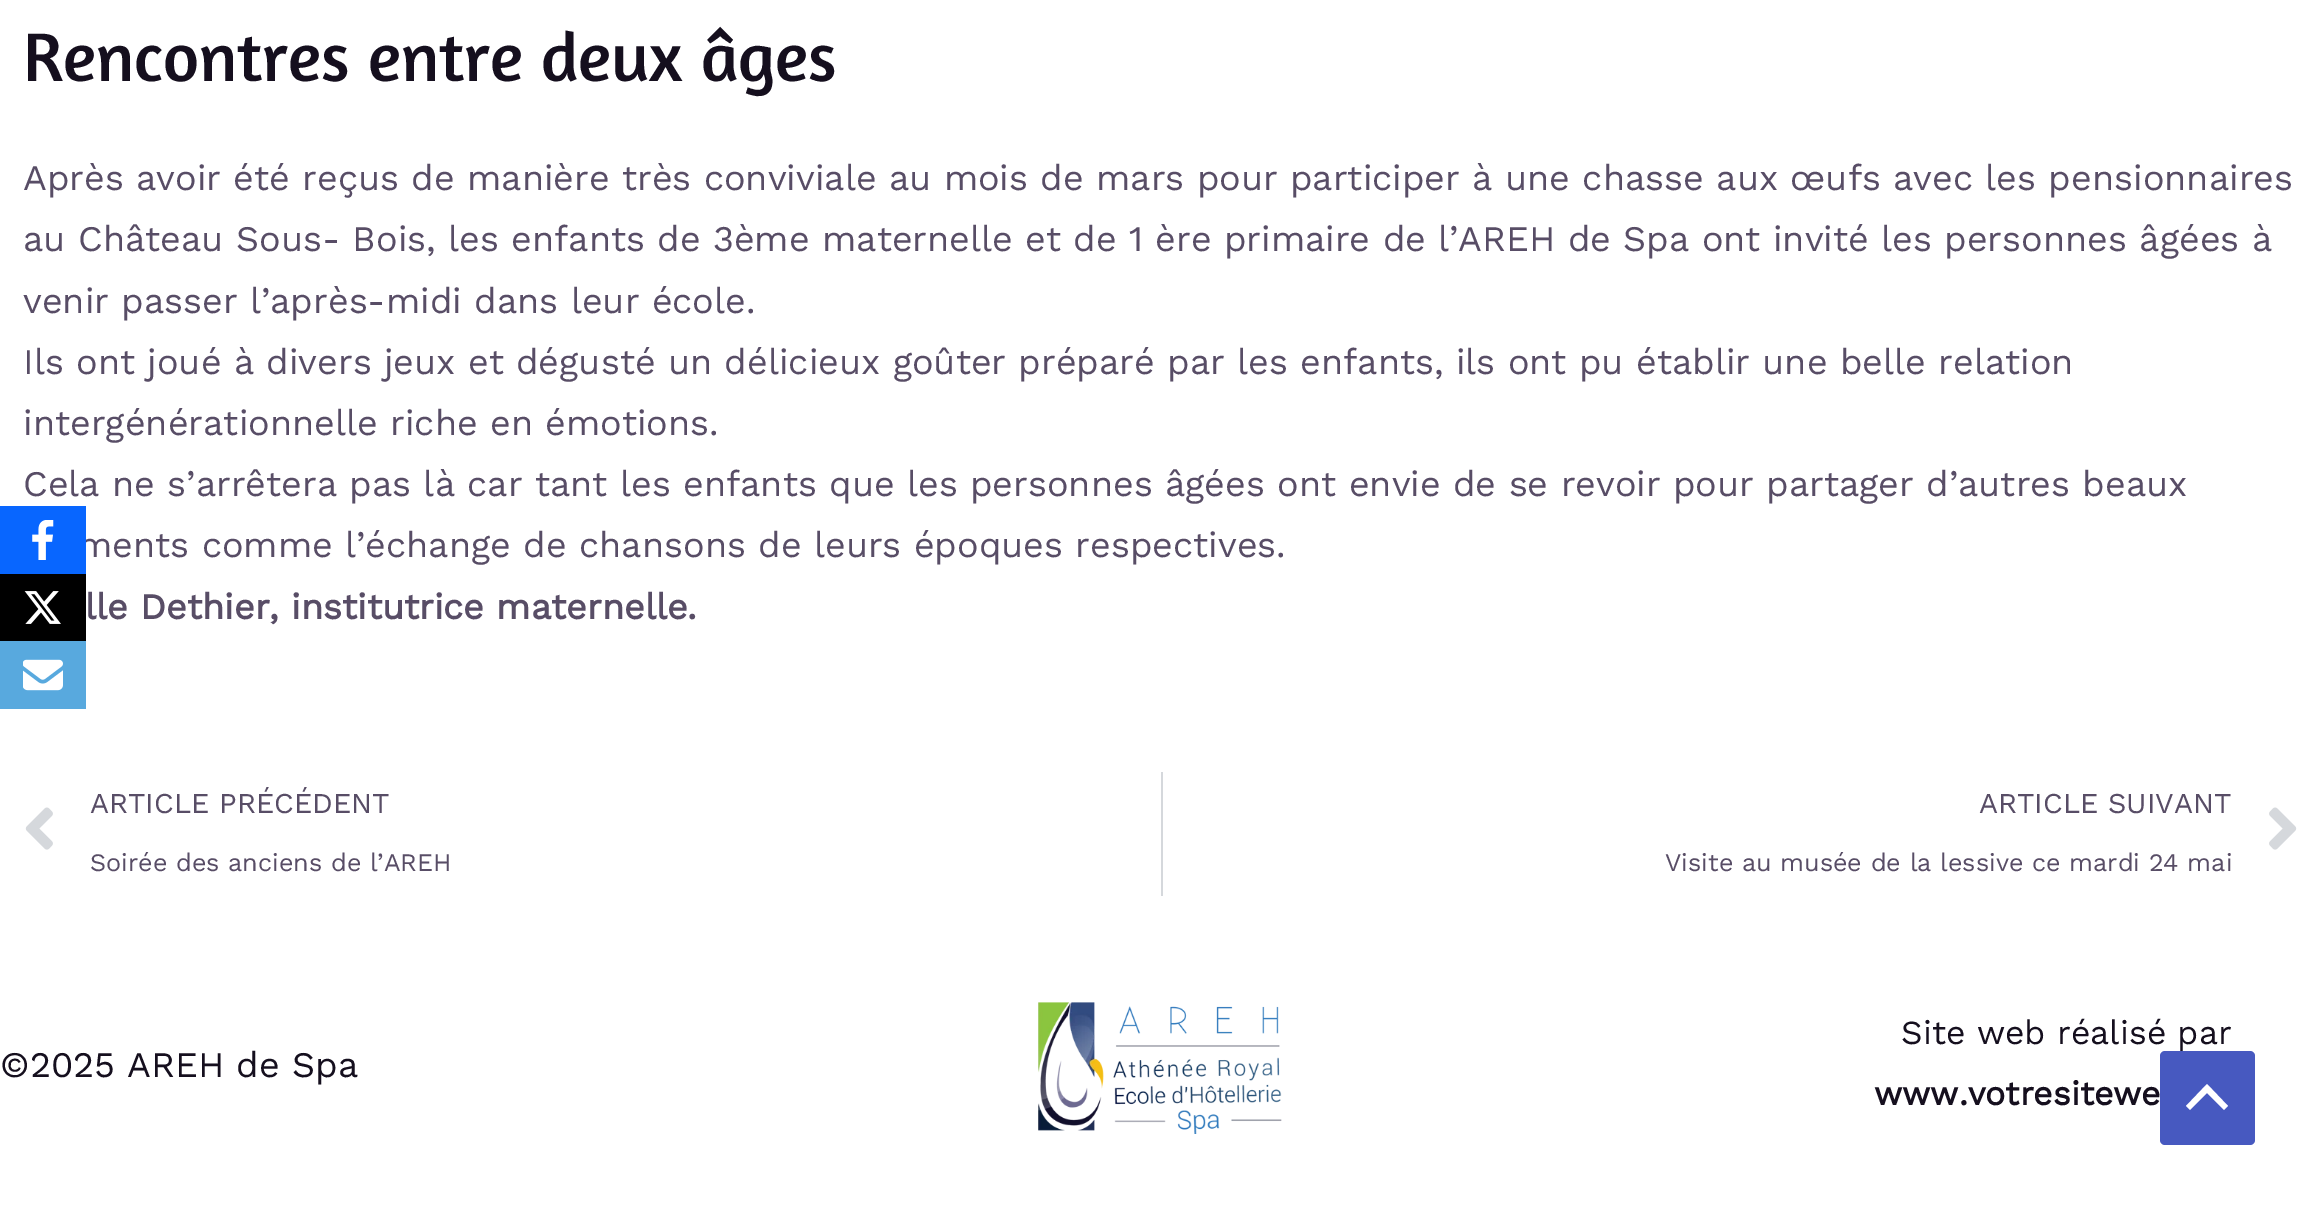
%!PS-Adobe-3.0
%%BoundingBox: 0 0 2322 1212
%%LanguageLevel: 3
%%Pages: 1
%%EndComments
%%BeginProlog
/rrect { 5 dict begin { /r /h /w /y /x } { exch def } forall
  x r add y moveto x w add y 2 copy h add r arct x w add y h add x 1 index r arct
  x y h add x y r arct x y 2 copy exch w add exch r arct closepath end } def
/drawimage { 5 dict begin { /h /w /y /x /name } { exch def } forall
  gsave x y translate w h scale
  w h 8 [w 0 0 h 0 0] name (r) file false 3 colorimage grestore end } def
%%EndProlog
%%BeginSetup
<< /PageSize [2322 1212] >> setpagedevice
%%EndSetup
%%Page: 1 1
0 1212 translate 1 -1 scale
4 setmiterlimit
1 setgray
0 0 2322 1212 rectfill
(images/1.raw) 25 807 28 43 drawimage
0.835 0.847 0.863 setrgbcolor
1161 772 2 124 rectfill
(images/2.raw) 2269 807 28 43 drawimage
(images/3.raw) 1038 1002 244 132 drawimage
0 setgray
0 574 86 67 rectfill
(images/5.raw) 24 591 37 33 drawimage
0.345 0.663 0.871 setrgbcolor
0 641 86 68 rectfill
(images/6.raw) 23 659 40 32 drawimage
/Amaranth-Regular [69.75 0 0 -69.75 0 0] selectfont
0.082 0.059 0.118 setrgbcolor
23 81 moveto (Rencontres entre deux âges) show
/WorkSans-Regular [36 0 0 -36 0 0] selectfont
0.345 0.302 0.4 setrgbcolor
23 190 moveto (Après avoir été reçus de manière très conviviale au mois de mars pour participer à une chasse aux œufs avec les pensionnaires) show
23 251 moveto (au Château Sous- Bois, les enfants de 3ème maternelle et de 1 ère primaire de l’AREH de Spa ont invité les personnes âgées à) show
23 313 moveto (venir passer l’après-midi dans leur école.) show
23 374 moveto (Ils ont joué à divers jeux et dégusté un délicieux goûter préparé par les enfants, ils ont pu établir une belle relation) show
23 435 moveto (intergénérationnelle riche en émotions.) show
23 496 moveto (Cela ne s’arrêtera pas là car tant les enfants que les personnes âgées ont envie de se revoir pour partager d’autres beaux) show
78 557 moveto (ments comme l’échange de chansons de leurs époques respectives.) show
/WorkSans-Bold [36 0 0 -36 0 0] selectfont
85 619 moveto (lle Dethier, institutrice maternelle.) show
/WorkSans-Regular [28.75 0 0 -28.75 0 0] selectfont
90 813 moveto (ARTICLE PRÉCÉDENT) show
/WorkSans-Regular [25.2 0 0 -25.2 0 0] selectfont
90 871 moveto (Soirée des anciens de l’AREH) show
/WorkSans-Regular [28.75 0 0 -28.75 0 0] selectfont
1979 813 moveto (ARTICLE SUIVANT) show
/WorkSans-Regular [25.2 0 0 -25.2 0 0] selectfont
1665 871 moveto (Visite au musée de la lessive ce mardi 24 mai) show
/WorkSans-Regular [36 0 0 -36 0 0] selectfont
0.082 0.059 0.118 setrgbcolor
0 1077 moveto (©2025 AREH de Spa) show
/WorkSans-Regular [33.75 0 0 -33.75 0 0] selectfont
1901 1044 moveto (Site web réalisé par) show
/WorkSans-Bold [33.75 0 0 -33.75 0 0] selectfont
1874 1105 moveto (www.votresitewe) show
0.031 0.4 1 setrgbcolor
0 506 86 68 rectfill
(images/4.raw) 32 520 22 40 drawimage
0.278 0.349 0.753 setrgbcolor
2160 1051 95 94 5 rrect fill
1 setgray
newpath 2228 1106 moveto 2207 1084 lineto 2186 1106 lineto 2190 1110 lineto 2207 1093 lineto 2224 1110 lineto closepath fill
showpage
%%EOF
